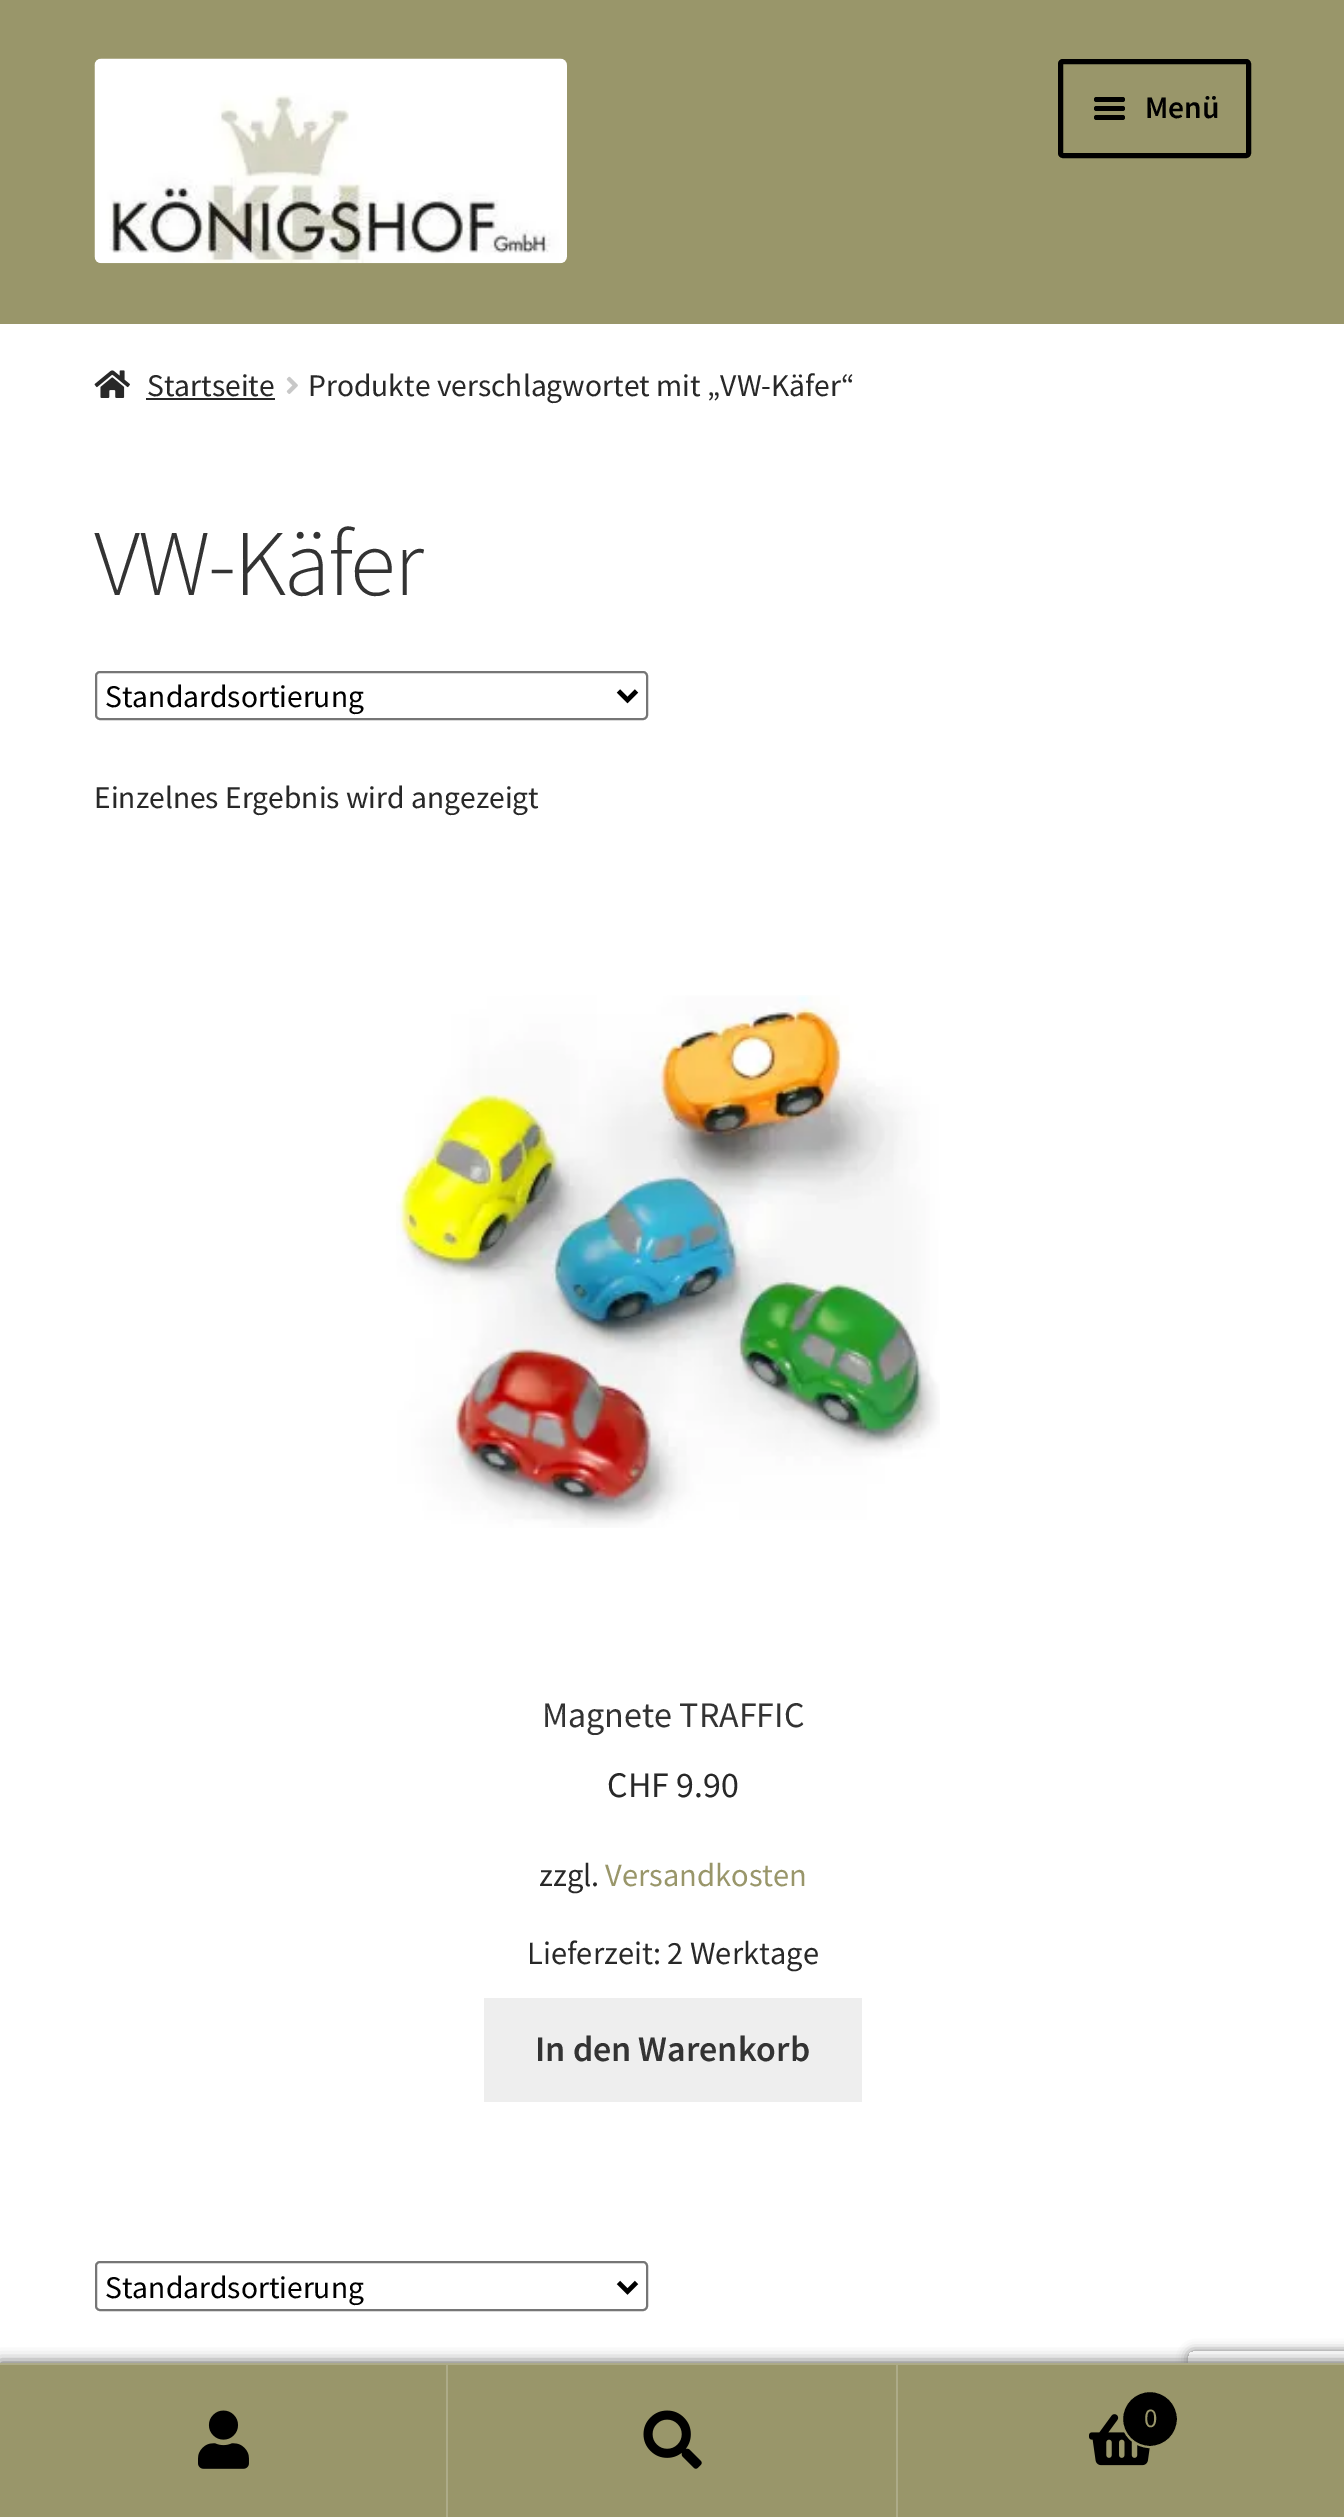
%!PS-Adobe-3.0
%%BoundingBox: 0 0 1344 2517
%%LanguageLevel: 3
%%Pages: 1
%%EndComments
%%BeginProlog
/setalpha { dup .setfillconstantalpha .setstrokeconstantalpha } def
/rrect { 5 dict begin { /r /h /w /y /x } { exch def } forall
  x r add y moveto x w add y 2 copy h add r arct x w add y h add x 1 index r arct
  x y h add x y r arct x y 2 copy exch w add exch r arct closepath end } def
/softshadow { 12 dict begin { /a /b /q /h /w /y /x } { exch def } forall gsave /was 0 def
  9 -2 -9 { dup b mul 4 div /e exch def 1 sub .425 mul 2.718 exch exp 1 add a .99 .min exch div /now exch def
    1 1 now sub 1 was sub div sub setalpha /was now def
    w h .min e 2 mul add 0 gt { x e sub y e sub w e 2 mul add h e 2 mul add
      q e add b .6 mul add w h .min 2 div e add .min 0 .max rrect fill } if } for grestore end } def
/drawimage { 5 dict begin { /h /w /y /x /name } { exch def } forall
  gsave x y translate w h scale
  w h 8 [w 0 0 h 0 0] name (r) file false 3 colorimage grestore end } def
%%EndProlog
%%BeginSetup
<< /PageSize [1344 2517] /PageUsesTransparency true >> setpagedevice
%%EndSetup
%%Page: 1 1
0 .pushpdf14devicefilter
0 2517 translate 1 -1 scale
4 setmiterlimit
1 setgray
0 0 1344 2517 rectfill
0.6 0.588 0.416 setrgbcolor
0 0 1344 324 rectfill
(images/1.raw) 94 58 473 206 drawimage
0 setgray
5 setlinewidth
1060.5 61.5 188 94 2.5 rrect stroke
1094 97 31 5 2.5 rrect fill
1094 106 31 5 2.5 rrect fill
1094 115 31 5 2.5 rrect fill
(images/2.raw) 94 370 36 28 drawimage
0.157 setgray
146 398 129 2 rectfill
(images/3.raw) 286 376 12 18 drawimage
0.463 setgray
2 setlinewidth
96 672 551 47 4 rrect stroke
0 setgray
4.5 setlinewidth
newpath 618.5 691 moveto 627.5 700 lineto 636.5 691 lineto stroke
(images/4.raw) 396 995 544 533 drawimage
0.933 setgray
484 1998 378 104 rectfill
0.463 setgray
2 setlinewidth
96 2262 551 48 4 rrect stroke
0 setgray
4.5 setlinewidth
newpath 618.5 2282.5 moveto 627.5 2291.5 lineto 636.5 2282.5 lineto stroke
0 2363 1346 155 0 7 0.7 softshadow
gsave
newpath 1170 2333 moveto 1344 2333 lineto 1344 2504 lineto 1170 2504 lineto closepath 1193 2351 moveto 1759 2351 lineto 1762 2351 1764 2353 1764 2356 curveto 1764 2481 lineto 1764 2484 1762 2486 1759 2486 curveto 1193 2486 lineto 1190 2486 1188 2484 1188 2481 curveto 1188 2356 lineto 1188 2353 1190 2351 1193 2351 curveto closepath eoclip newpath
0.502 setgray
1188 2351 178 135 5 5.5 1 softshadow
grestore
0.678 0.671 0.533 setrgbcolor
0 2363 1344 2 rectfill
0.6 0.588 0.416 setrgbcolor
0 2365 446 152 rectfill
0.678 0.671 0.533 setrgbcolor
446 2365 2 152 rectfill
(images/5.raw) 198 2410 51 59 drawimage
0.6 0.588 0.416 setrgbcolor
448 2365 448 152 rectfill
0.678 0.671 0.533 setrgbcolor
896 2365 2 152 rectfill
(images/6.raw) 643 2410 59 59 drawimage
0.6 0.588 0.416 setrgbcolor
898 2365 446 152 rectfill
(images/7.raw) 1089 2414 61 52 drawimage
0 setgray
newpath 1150 2419 28 0 360 arc closepath gsave fill grestore
0.6 0.588 0.416 setrgbcolor
2 setlinewidth
stroke
/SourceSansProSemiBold-SemiBold [31.5 0 0 -31.5 0 0] selectfont
0 setgray
1145 118 moveto (Menü) show
/SourceSansPro-Regular [31.5 0 0 -31.5 0 0] selectfont
0.157 setgray
147 396 moveto (Startseite) show
308 396 moveto (Produkte verschlagwortet mit „VW-Käfer“) show
/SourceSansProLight-Light [94 0 0 -94 0 0] selectfont
0.2 setgray
94 595 moveto -2.25 0 (VW-Käfer) ashow
/SourceSansPro-Regular [31.5 0 0 -31.5 0 0] selectfont
0 setgray
105 707 moveto (Standardsortierung) show
0.157 setgray
94 808 moveto (Einzelnes Ergebnis wird angezeigt) show
/SourceSansPro-Regular [36 0 0 -36 0 0] selectfont
0.2 setgray
542 1727 moveto (Magnete TRAFFIC) show
0.157 setgray
607 1797 moveto (CHF 9.90) show
/SourceSansPro-Regular [32.5 0 0 -32.5 0 0] selectfont
539 1886 moveto (zzgl.) show
0.6 0.588 0.416 setrgbcolor
605 1886 moveto (Versandkosten) show
0.157 setgray
527 1964 moveto (Lieferzeit: 2 Werktage) show
/SourceSansProSemiBold-SemiBold [36 0 0 -36 0 0] selectfont
0.2 setgray
535 2061 moveto (In den Warenkorb) show
/SourceSansPro-Regular [31.5 0 0 -31.5 0 0] selectfont
0 setgray
105 2298 moveto (Standardsortierung) show
/SourceSansPro-Regular [27 0 0 -27 0 0] selectfont
0.6 0.588 0.416 setrgbcolor
1144 2427 moveto (0) show
.poppdf14devicefilter showpage
%%EOF
